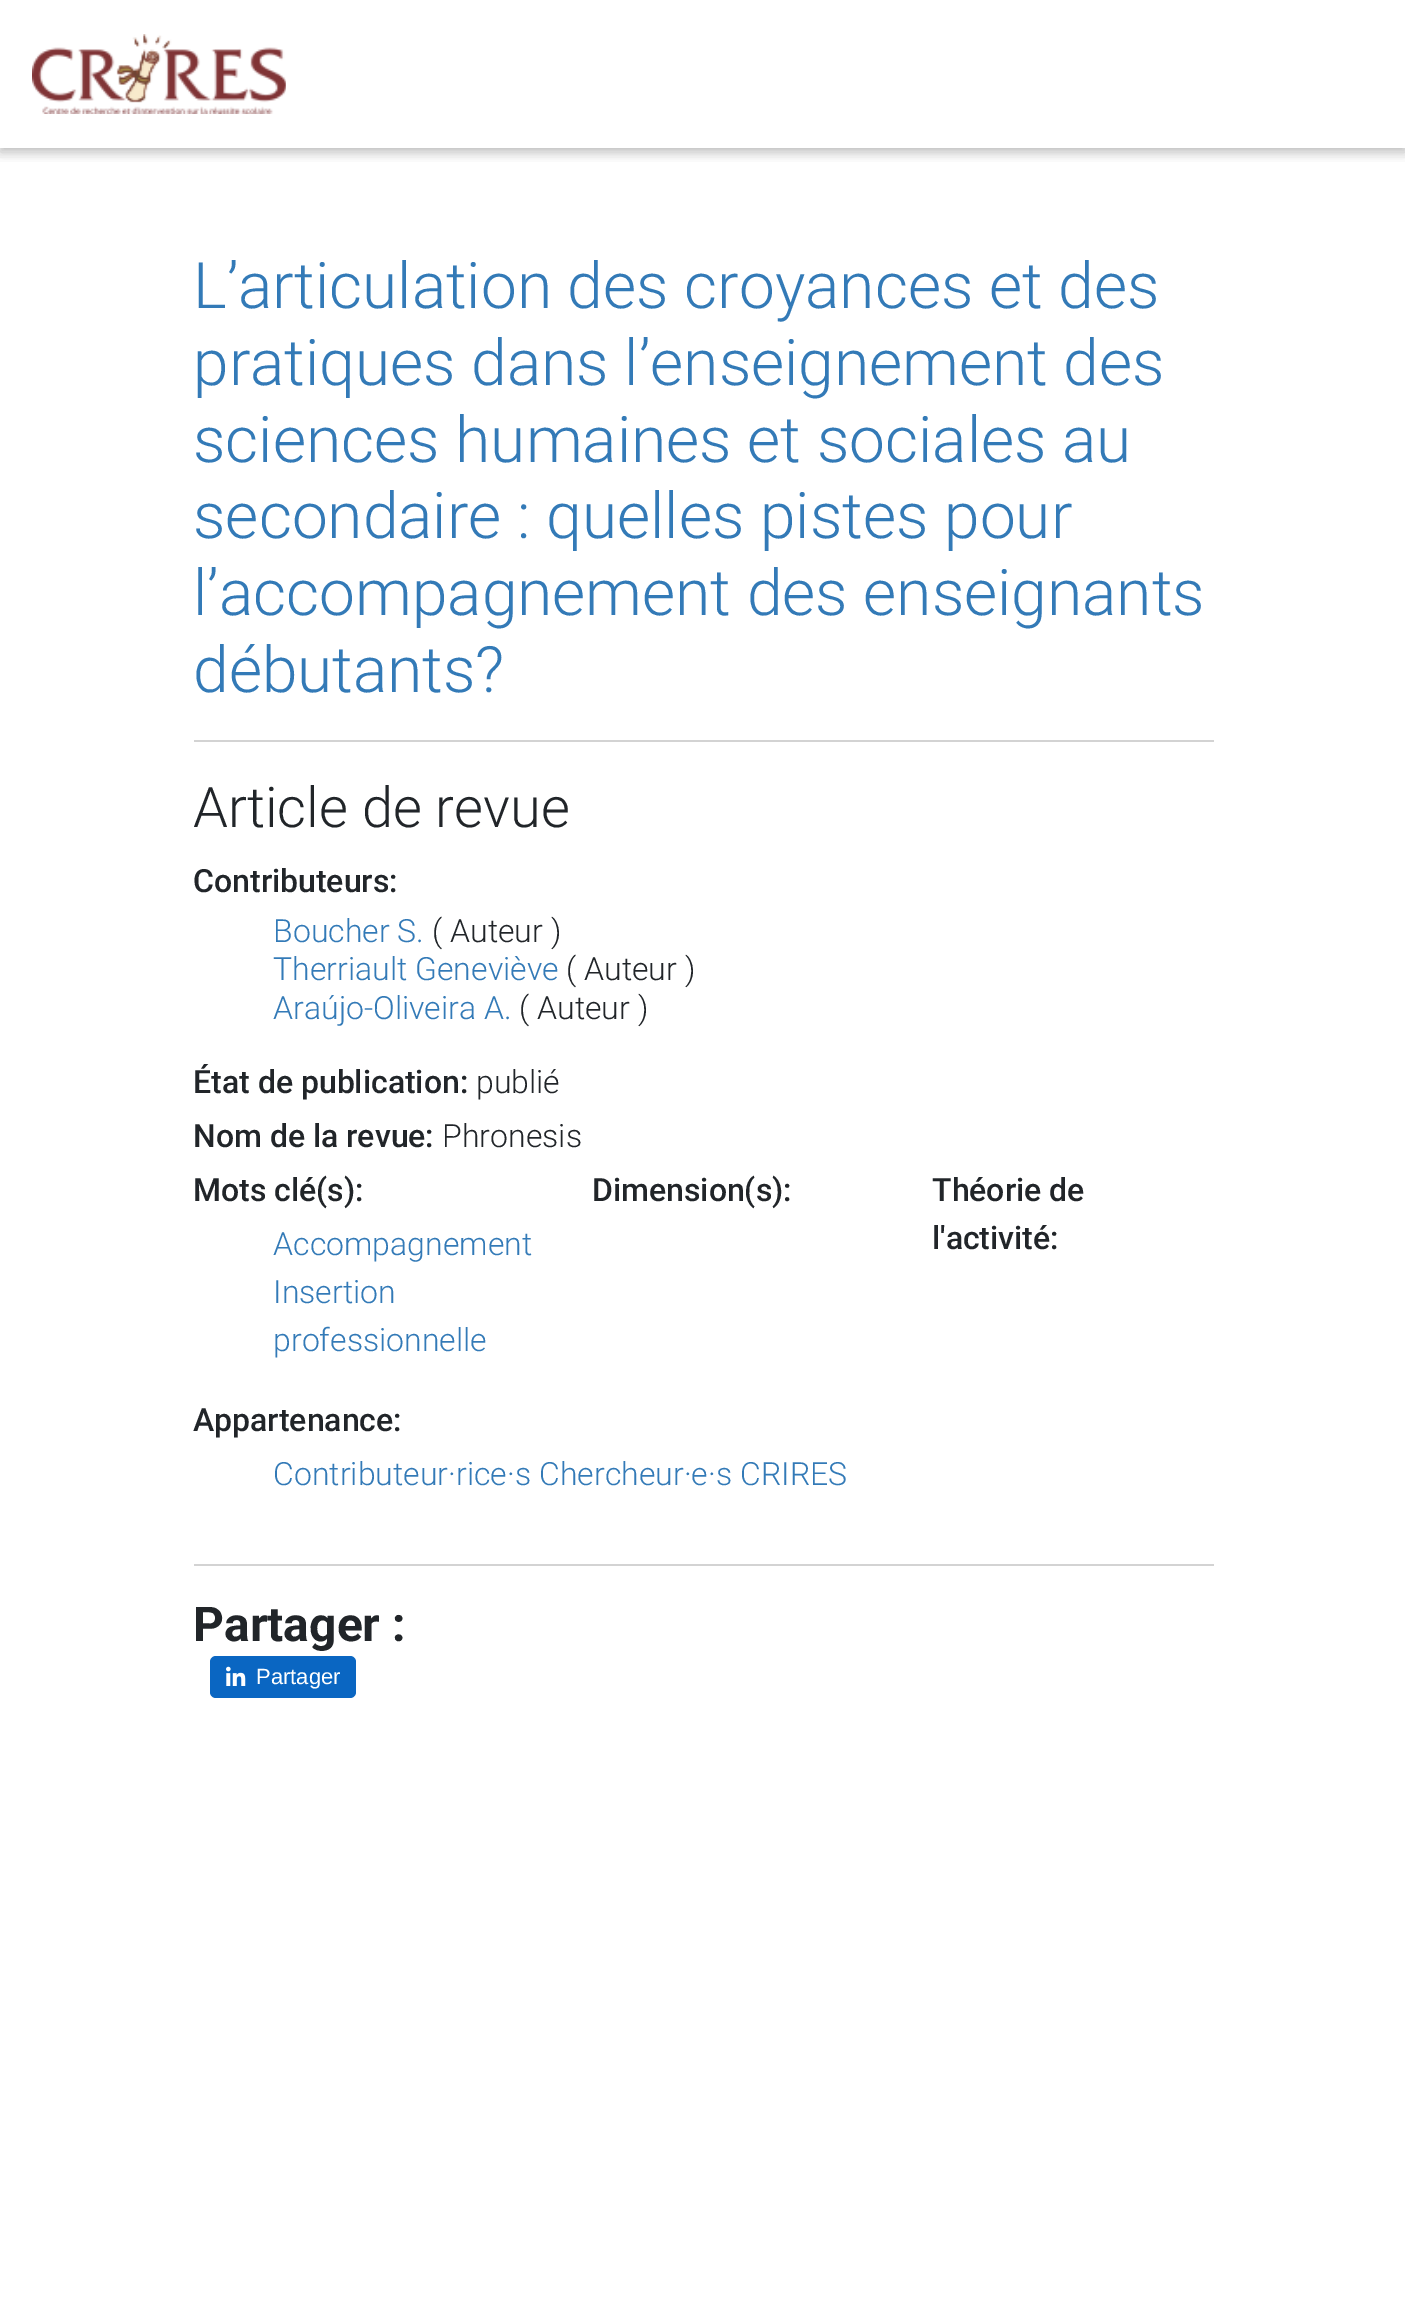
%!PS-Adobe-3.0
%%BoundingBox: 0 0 1405 2300
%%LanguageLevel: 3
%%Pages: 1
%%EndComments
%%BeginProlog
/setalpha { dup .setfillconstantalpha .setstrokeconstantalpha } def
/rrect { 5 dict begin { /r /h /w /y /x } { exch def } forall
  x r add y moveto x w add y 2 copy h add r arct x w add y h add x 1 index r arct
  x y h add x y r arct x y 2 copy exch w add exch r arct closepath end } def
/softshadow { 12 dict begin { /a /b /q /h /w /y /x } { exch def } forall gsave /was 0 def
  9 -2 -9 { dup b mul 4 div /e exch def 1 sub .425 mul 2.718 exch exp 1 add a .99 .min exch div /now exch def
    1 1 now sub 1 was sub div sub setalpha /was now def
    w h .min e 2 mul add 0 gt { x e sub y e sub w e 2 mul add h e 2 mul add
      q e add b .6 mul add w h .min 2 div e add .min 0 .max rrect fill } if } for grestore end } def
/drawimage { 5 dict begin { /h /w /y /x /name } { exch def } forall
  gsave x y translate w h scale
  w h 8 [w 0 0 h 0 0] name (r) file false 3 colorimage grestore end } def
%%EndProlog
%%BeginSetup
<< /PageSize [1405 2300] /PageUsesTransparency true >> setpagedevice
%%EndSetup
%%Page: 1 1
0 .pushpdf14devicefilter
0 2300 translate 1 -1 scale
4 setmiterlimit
1 setgray
0 0 1405 2300 rectfill
gsave
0 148 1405 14 rectclip
0 setgray
0 4 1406 148 0 10 0.12 softshadow
grestore
gsave
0 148 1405 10 rectclip
0 setgray
0 4 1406 148 0 5 0.16 softshadow
grestore
(images/1.raw) 32 34 254 80 drawimage
0.827 setgray
194 740 1020 2 rectfill
194 1564 1020 2 rectfill
0.039 0.4 0.761 setrgbcolor
210 1656 146 42 6 rrect fill
(images/2.raw) 226 1666 20 20 drawimage
/Roboto-Light [64 0 0 -64 0 0] selectfont
0.2 0.478 0.718 setrgbcolor
193 308 moveto (L’articulation des croyances et des) show
193 385 moveto (pratiques dans l’enseignement des) show
193 462 moveto (sciences humaines et sociales au) show
193 538 moveto (secondaire : quelles pistes pour) show
193 615 moveto (l’accompagnement des enseignants) show
193 692 moveto (débutants?) show
/Roboto-Light [56 0 0 -56 0 0] selectfont
0.129 0.145 0.161 setrgbcolor
193 827 moveto (Article de revue) show
/Roboto-Medium [32 0 0 -32 0 0] selectfont
193 892 moveto (Contributeurs:) show
/Roboto-Light [32 0 0 -32 0 0] selectfont
0.2 0.478 0.718 setrgbcolor
273 942 moveto (Boucher S.) show
0.129 0.145 0.161 setrgbcolor
432 942 moveto (\( Auteur \)) show
0.2 0.478 0.718 setrgbcolor
273 980 moveto (Therriault Geneviève) show
0.129 0.145 0.161 setrgbcolor
566 980 moveto (\( Auteur \)) show
0.2 0.478 0.718 setrgbcolor
273 1019 moveto (Araújo-Oliveira A.) show
0.129 0.145 0.161 setrgbcolor
519 1019 moveto (\( Auteur \)) show
/Roboto-Medium [32 0 0 -32 0 0] selectfont
193 1093 moveto (État de publication:) show
/Roboto-Light [32 0 0 -32 0 0] selectfont
476 1093 moveto (publié) show
/Roboto-Medium [32 0 0 -32 0 0] selectfont
193 1147 moveto (Nom de la revue:) show
/Roboto-Light [32 0 0 -32 0 0] selectfont
442 1147 moveto (Phronesis) show
/Roboto-Medium [32 0 0 -32 0 0] selectfont
193 1201 moveto (Mots clé\(s\):) show
/Roboto-Light [32 0 0 -32 0 0] selectfont
0.2 0.478 0.718 setrgbcolor
273 1255 moveto (Accompagnement) show
273 1303 moveto (Insertion) show
273 1351 moveto (professionnelle) show
/Roboto-Medium [32 0 0 -32 0 0] selectfont
0.129 0.145 0.161 setrgbcolor
592 1201 moveto (Dimension\(s\):) show
932 1201 moveto (Théorie de) show
932 1249 moveto (l'activité:) show
193 1431 moveto (Appartenance:) show
/Roboto-Light [32 0 0 -32 0 0] selectfont
0.2 0.478 0.718 setrgbcolor
273 1485 moveto (Contributeur·rice·s Chercheur·e·s CRIRES) show
/Roboto-Bold [48 0 0 -48 0 0] selectfont
0.129 0.145 0.161 setrgbcolor
193 1641 moveto (Partager :) show
/LiberationSans-Regular [22 0 0 -22 0 0] selectfont
1 setgray
256 1684 moveto (Partager) show
.poppdf14devicefilter showpage
%%EOF
